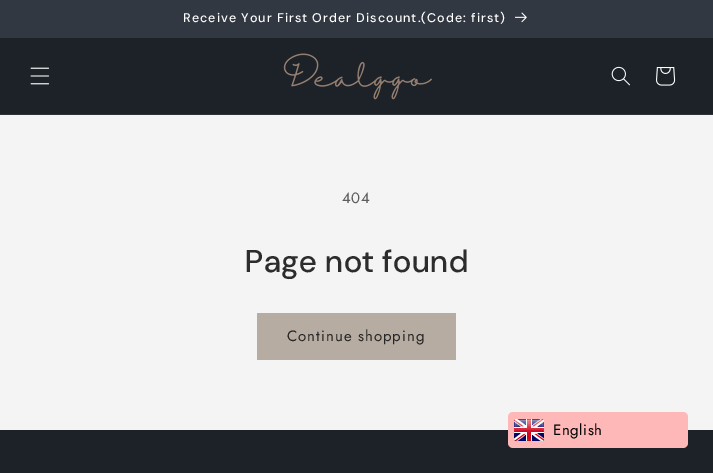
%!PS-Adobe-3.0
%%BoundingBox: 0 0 713 473
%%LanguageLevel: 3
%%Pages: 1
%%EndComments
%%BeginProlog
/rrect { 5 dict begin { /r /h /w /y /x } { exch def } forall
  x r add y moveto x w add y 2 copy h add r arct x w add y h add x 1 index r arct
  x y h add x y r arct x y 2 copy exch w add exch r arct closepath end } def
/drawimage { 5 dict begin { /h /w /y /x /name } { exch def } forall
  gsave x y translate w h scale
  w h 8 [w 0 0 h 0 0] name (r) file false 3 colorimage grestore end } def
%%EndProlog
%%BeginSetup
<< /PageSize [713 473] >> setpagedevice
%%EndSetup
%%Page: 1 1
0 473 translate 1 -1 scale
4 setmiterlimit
0.957 setgray
0 0 713 473 rectfill
0.196 0.22 0.255 setrgbcolor
0 0 713 38 rectfill
(images/1.raw) 515 12 12 11 drawimage
0.11 0.133 0.157 setrgbcolor
0 38 713 76 rectfill
0.18 0.204 0.224 setrgbcolor
0 114 713 1 rectfill
(images/2.raw) 30 67 20 18 drawimage
(images/3.raw) 283 53 149 47 drawimage
(images/4.raw) 611 66 19 20 drawimage
(images/5.raw) 656 67 20 19 drawimage
0.718 0.675 0.635 setrgbcolor
257 313 199 47 rectfill
0.11 0.133 0.157 setrgbcolor
0 430 713 43 rectfill
1 0.722 0.722 setrgbcolor
508 412 180 36 5 rrect fill
(images/6.raw) 514 419 30 22 drawimage
/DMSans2-Medium [12.6 0 0 -12.6 0 0] selectfont
1 setgray
183 22 moveto 1 0 (Receive Your First Order Discount.\(Code: first\)) ashow
/Jost-Regular [15 0 0 -15 0 0] selectfont
0.365 0.369 0.373 setrgbcolor
342 203 moveto 0.5 0 (404) ashow
/DMSans-Medium [31.5 0 0 -31.5 0 0] selectfont
0.169 0.173 0.176 setrgbcolor
245 272 moveto 0.6 0 (Page not found) ashow
/Jost-Regular [15 0 0 -15 0 0] selectfont
0.149 setgray
287 341 moveto 1 0 (Continue shopping) ashow
0 setgray
553 435 moveto 0.5 0 (English) ashow
showpage
%%EOF
